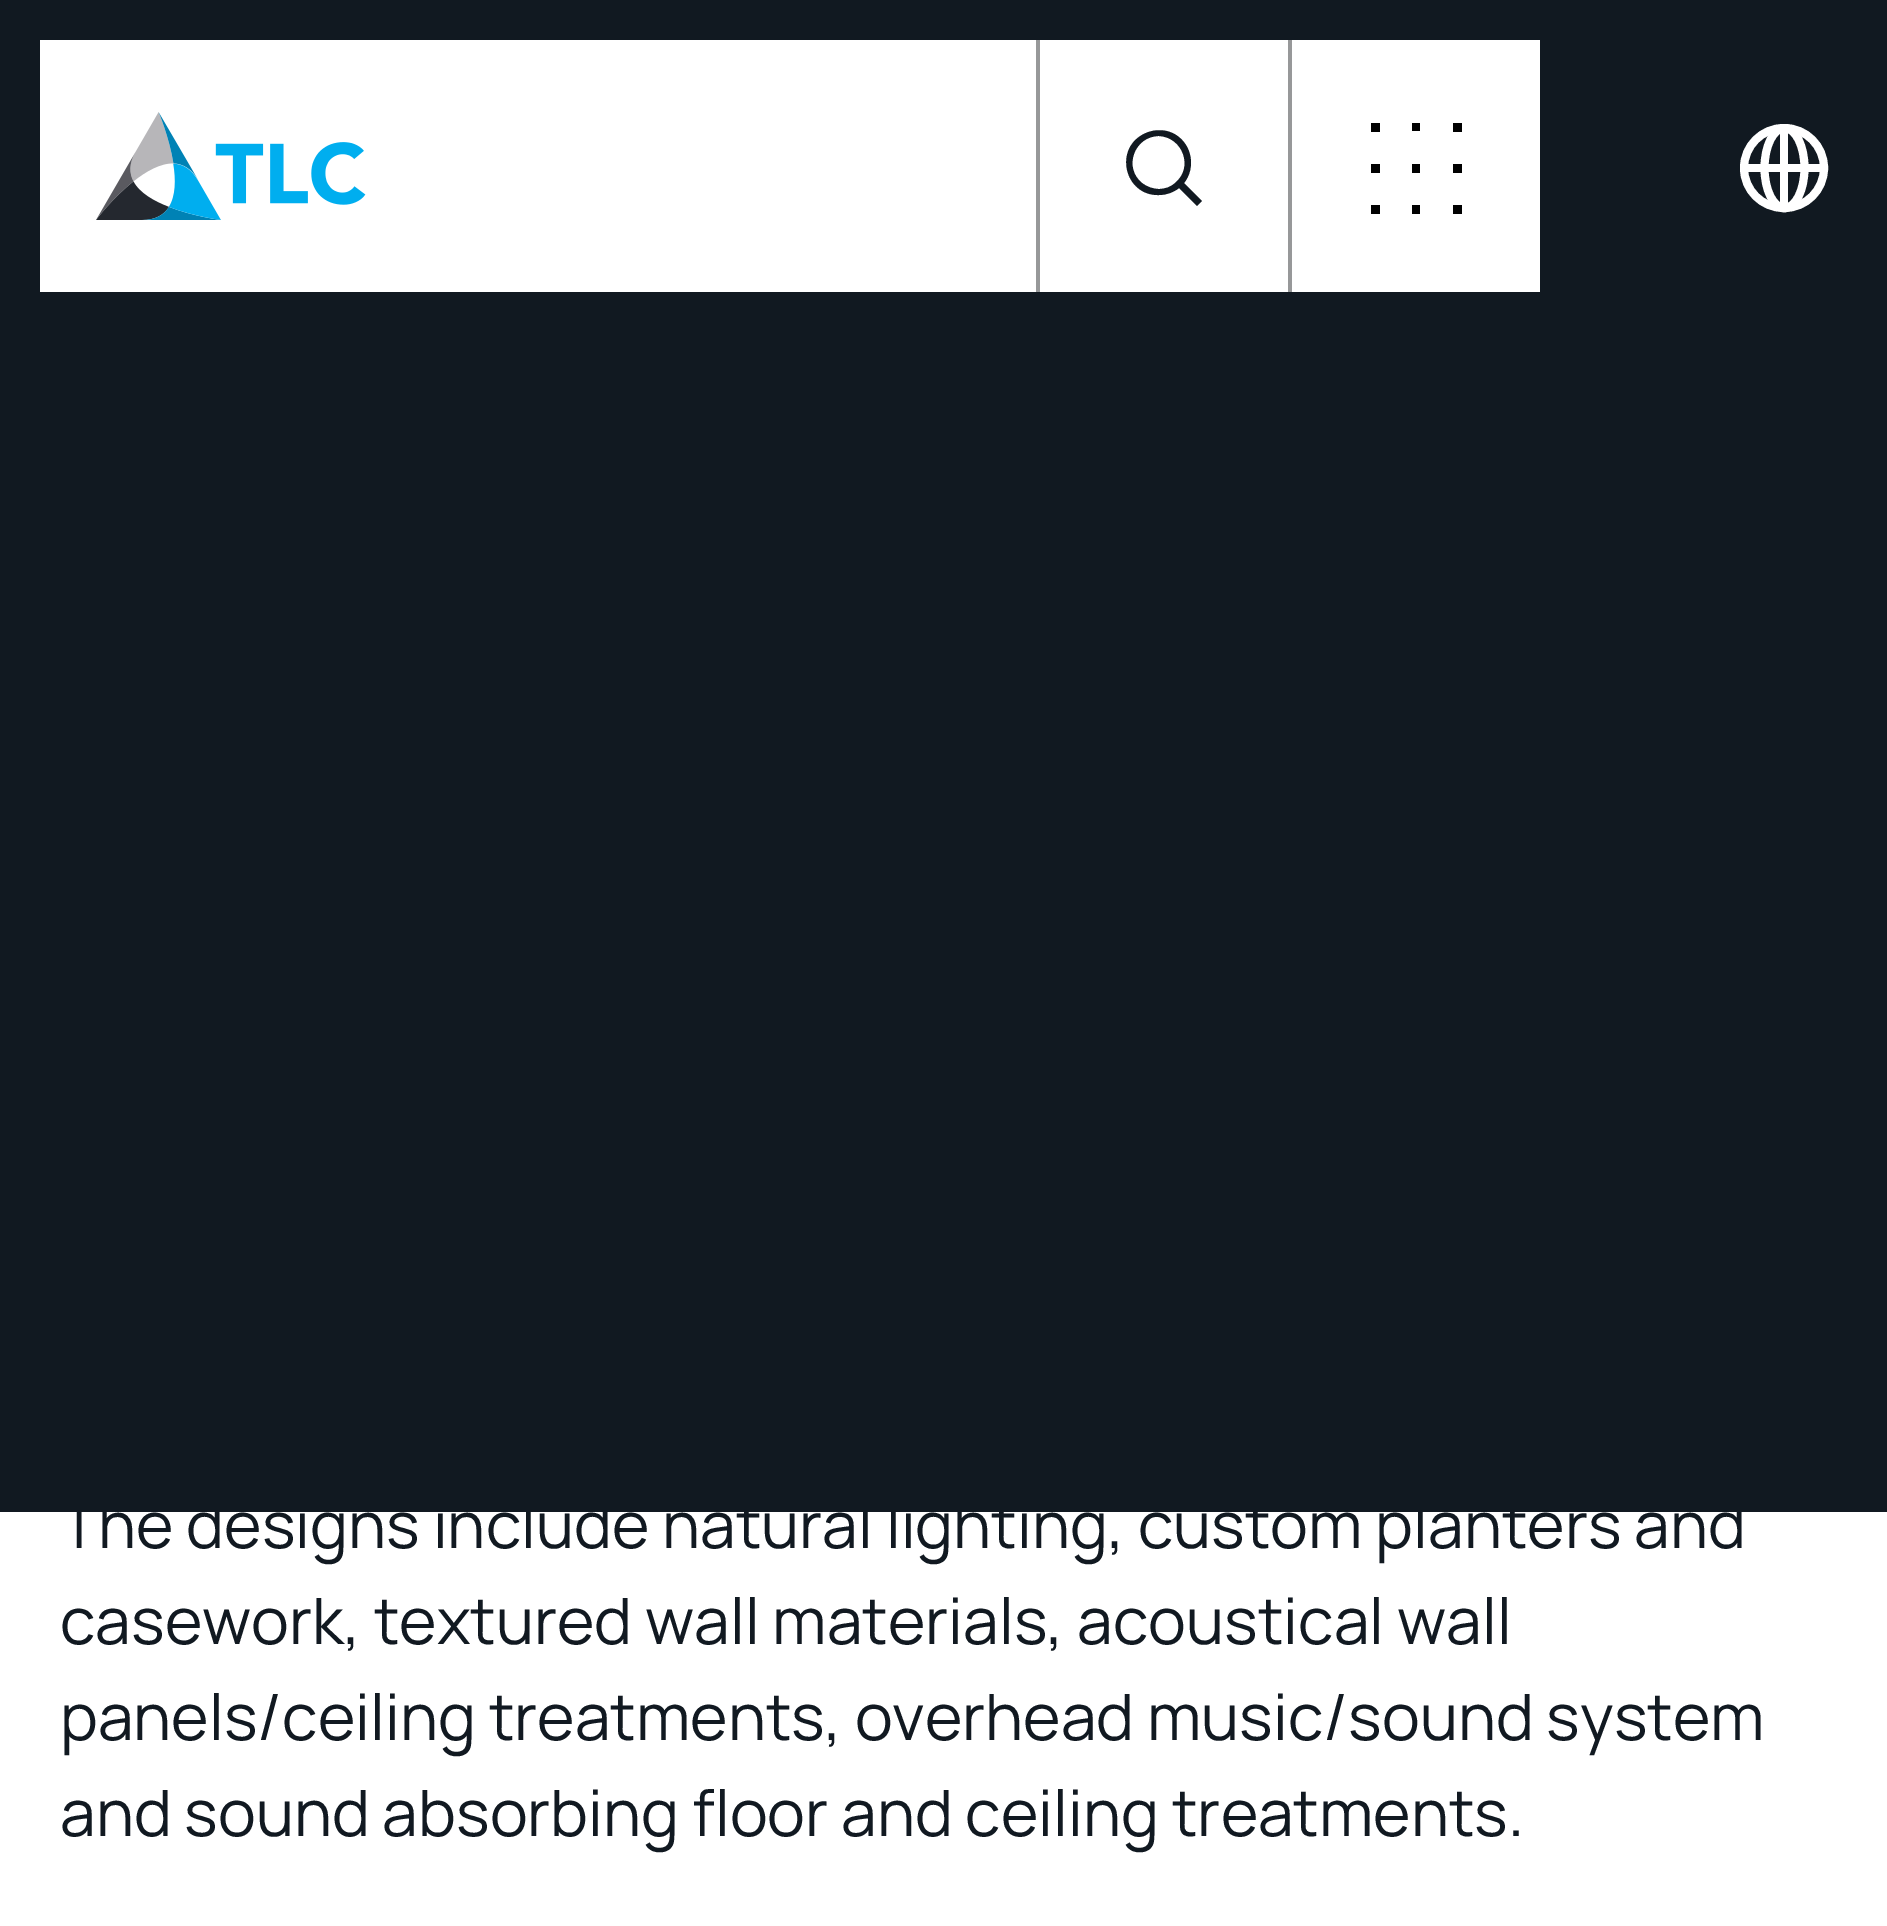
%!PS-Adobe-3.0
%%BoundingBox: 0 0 1887 1926
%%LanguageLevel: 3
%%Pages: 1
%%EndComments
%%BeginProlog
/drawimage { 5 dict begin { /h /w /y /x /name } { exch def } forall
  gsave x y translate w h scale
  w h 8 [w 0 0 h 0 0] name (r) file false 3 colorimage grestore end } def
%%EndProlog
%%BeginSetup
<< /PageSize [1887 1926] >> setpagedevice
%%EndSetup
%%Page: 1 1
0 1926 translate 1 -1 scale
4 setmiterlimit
1 setgray
0 0 1887 1926 rectfill
0.067 0.098 0.129 setrgbcolor
0 0 1887 1512 rectfill
1 setgray
40 40 1500 252 rectfill
(images/1.raw) 96 112 270 108 drawimage
0.592 0.596 0.6 setrgbcolor
1036 40 4 252 rectfill
0.067 0.098 0.129 setrgbcolor
newpath 1202 201 moveto 1184 183 lineto 1196 168 1192 145 1176 135 curveto 1167 129 1155 129 1146 133 curveto 1113 147 1124 196 1159 195 curveto 1167 195 1174 192 1179 188 curveto 1197 206 lineto closepath 1159 189 moveto 1153 189 1147 187 1142 183 curveto 1123 168 1134 136 1159 136 curveto 1183 137 1194 168 1175 183 curveto 1171 187 1165 189 1159 189 curveto closepath fill
0.592 0.596 0.6 setrgbcolor
1288 40 4 252 rectfill
0 setgray
1371 123 9 9 rectfill
1412 123 8 8 rectfill
1453 123 9 9 rectfill
1371 164 9 9 rectfill
1412 164 8 9 rectfill
1453 164 9 9 rectfill
1371 205 9 9 rectfill
1412 205 8 9 rectfill
1453 205 9 9 rectfill
1 setgray
8 setlinewidth
newpath 1784 168 40 0 360 arc closepath stroke
1780 132 8 72 rectfill
newpath 1784.5 128 moveto 1795.5 128 1804.5 146 1804.5 168 curveto 1804.5 190 1795.5 208 1784.5 208 curveto 1773.5 208 1764.5 190 1764.5 168 curveto 1764.5 146 1773.5 128 1784.5 128 curveto closepath stroke
1748 164 72 8 rectfill
/Manrope-Regular [64 0 0 -64 0 0] selectfont
0.067 0.098 0.129 setrgbcolor
60 1548 moveto (The designs include natural lighting, custom planters and) show
60 1644 moveto (casework, textured wall materials, acoustical wall) show
60 1740 moveto (panels/ceiling treatments, overhead music/sound system) show
60 1836 moveto (and sound absorbing floor and ceiling treatments.) show
showpage
%%EOF
